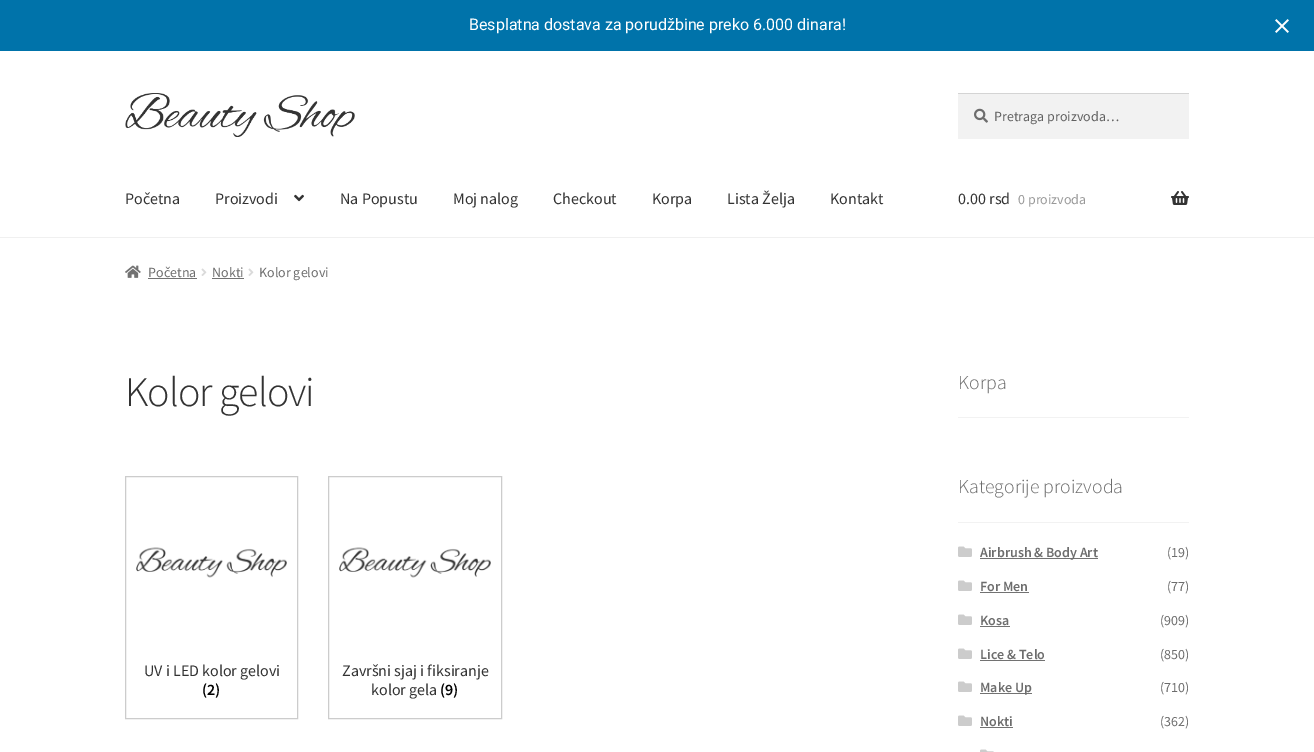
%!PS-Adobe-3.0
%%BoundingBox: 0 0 1314 752
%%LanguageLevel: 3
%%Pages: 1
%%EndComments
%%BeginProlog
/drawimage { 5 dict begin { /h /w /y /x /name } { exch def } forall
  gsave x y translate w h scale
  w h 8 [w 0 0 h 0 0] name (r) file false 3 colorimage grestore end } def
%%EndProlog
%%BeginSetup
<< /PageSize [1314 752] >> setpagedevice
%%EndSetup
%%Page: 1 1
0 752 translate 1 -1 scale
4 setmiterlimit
1 setgray
0 0 1314 752 rectfill
0 0.451 0.667 setrgbcolor
0 0 1314 51 rectfill
(images/1.raw) 1275 19 14 14 drawimage
0.941 setgray
0 237 1314 1 rectfill
(images/2.raw) 125 93 230 44 drawimage
0.949 setgray
958 94 231 45 rectfill
(images/3.raw) 974 108 14 15 drawimage
0.831 setgray
958 93 231 1 rectfill
(images/4.raw) 294 194 10 8 drawimage
(images/5.raw) 1171 191 18 14 drawimage
(images/6.raw) 125 265 16 13 drawimage
0.447 setgray
148 278 49 1 rectfill
(images/7.raw) 201 268 6 8 drawimage
212 278 32 1 rectfill
(images/7.raw) 248 268 6 8 drawimage
0.8 setgray
125.5 476.5 172 242 rectstroke
(images/8.raw) 136 547 151 31 drawimage
328.5 476.5 173 242 rectstroke
(images/9.raw) 339 547 152 31 drawimage
0.949 setgray
958 417 231 1 rectfill
958 522 231 1 rectfill
(images/10.raw) 958 546 14 11 drawimage
0.447 setgray
980 558 118 1 rectfill
(images/10.raw) 958 580 14 11 drawimage
980 592 49 1 rectfill
(images/10.raw) 958 614 14 11 drawimage
980 626 30 1 rectfill
(images/10.raw) 958 648 14 11 drawimage
980 660 65 1 rectfill
(images/10.raw) 958 681 14 11 drawimage
980 693 52 1 rectfill
(images/10.raw) 958 715 14 11 drawimage
980 727 33 1 rectfill
(images/11.raw) 980 749 14 3 drawimage
/Roboto-Regular [16 0 0 -16 0 0] selectfont
1 setgray
469 30 moveto (Besplatna dostava za porudžbine preko 6.000 dinara!) show
/SourceSansPro-Regular [14 0 0 -14 0 0] selectfont
0.38 setgray
994 121 moveto (Pretraga proizvoda…) show
/SourceSansPro-Regular [16 0 0 -16 0 0] selectfont
0.2 setgray
125 204 moveto (Početna) show
215 204 moveto (Proizvodi) show
340 204 moveto (Na Popustu) show
453 204 moveto (Moj nalog) show
553 204 moveto (Checkout) show
652 204 moveto (Korpa) show
727 204 moveto (Lista Želja) show
830 204 moveto (Kontakt) show
958 204 moveto (0.00 rsd) show
/SourceSansPro-Regular [14 0 0 -14 0 0] selectfont
0.6 setgray
1018 204 moveto (0 proizvoda) show
0.427 setgray
148 277 moveto (Početna) show
212 277 moveto (Nokti) show
259 277 moveto (Kolor gelovi) show
/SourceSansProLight-Light [42 0 0 -42 0 0] selectfont
0.2 setgray
125 406 moveto -1 0 (Kolor gelovi) ashow
/SourceSansPro-Regular [16 0 0 -16 0 0] selectfont
144 676 moveto (UV i LED kolor gelovi) show
/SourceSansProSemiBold-SemiBold [16 0 0 -16 0 0] selectfont
0 setgray
202 695 moveto (\(2\)) show
/SourceSansPro-Regular [16 0 0 -16 0 0] selectfont
0.2 setgray
342 676 moveto (Završni sjaj i fiksiranje) show
371 695 moveto (kolor gela) show
/SourceSansProSemiBold-SemiBold [16 0 0 -16 0 0] selectfont
0 setgray
440 695 moveto (\(9\)) show
/SourceSansProLight-Light [19.75 0 0 -19.75 0 0] selectfont
0.427 setgray
958 389 moveto (Korpa) show
958 493 moveto (Kategorije proizvoda) show
/SourceSansProSemiBold-SemiBold [14 0 0 -14 0 0] selectfont
980 557 moveto (Airbrush & Body Art) show
/SourceSansPro-Regular [14 0 0 -14 0 0] selectfont
1167 557 moveto (\(19\)) show
/SourceSansProSemiBold-SemiBold [14 0 0 -14 0 0] selectfont
980 591 moveto (For Men) show
/SourceSansPro-Regular [14 0 0 -14 0 0] selectfont
1167 591 moveto (\(77\)) show
/SourceSansProSemiBold-SemiBold [14 0 0 -14 0 0] selectfont
980 625 moveto (Kosa) show
/SourceSansPro-Regular [14 0 0 -14 0 0] selectfont
1160 625 moveto (\(909\)) show
/SourceSansProSemiBold-SemiBold [14 0 0 -14 0 0] selectfont
980 659 moveto (Lice & Telo) show
/SourceSansPro-Regular [14 0 0 -14 0 0] selectfont
1160 659 moveto (\(850\)) show
/SourceSansProSemiBold-SemiBold [14 0 0 -14 0 0] selectfont
980 692 moveto (Make Up) show
/SourceSansPro-Regular [14 0 0 -14 0 0] selectfont
1160 692 moveto (\(710\)) show
/SourceSansProSemiBold-SemiBold [14 0 0 -14 0 0] selectfont
980 726 moveto (Nokti) show
/SourceSansPro-Regular [14 0 0 -14 0 0] selectfont
1160 726 moveto (\(362\)) show
showpage
%%EOF
